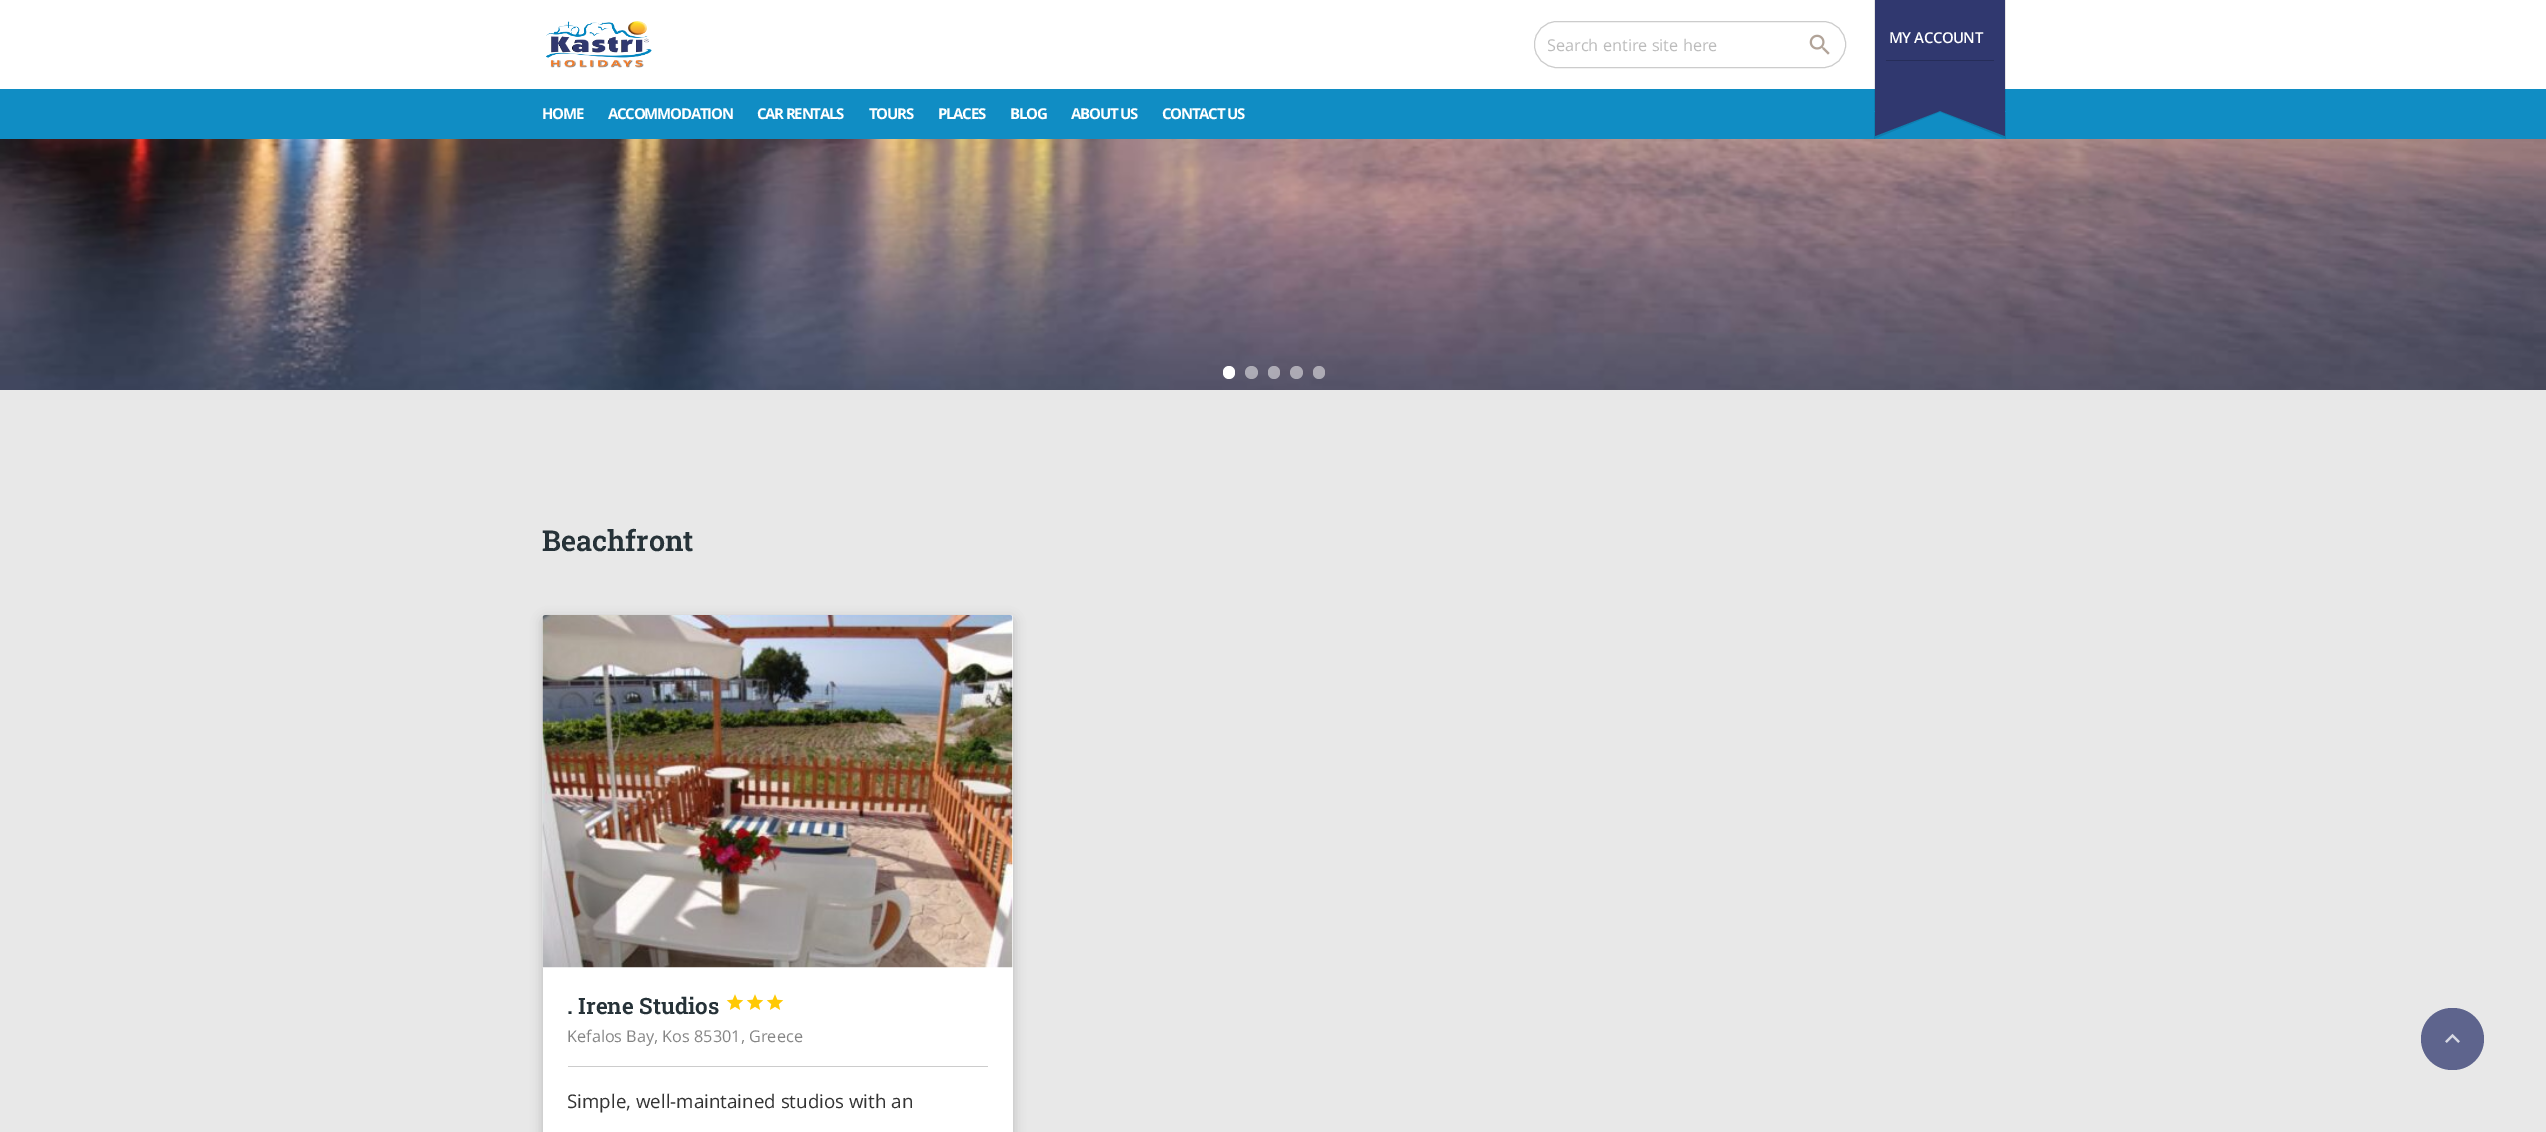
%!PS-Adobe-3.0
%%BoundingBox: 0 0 2546 1132
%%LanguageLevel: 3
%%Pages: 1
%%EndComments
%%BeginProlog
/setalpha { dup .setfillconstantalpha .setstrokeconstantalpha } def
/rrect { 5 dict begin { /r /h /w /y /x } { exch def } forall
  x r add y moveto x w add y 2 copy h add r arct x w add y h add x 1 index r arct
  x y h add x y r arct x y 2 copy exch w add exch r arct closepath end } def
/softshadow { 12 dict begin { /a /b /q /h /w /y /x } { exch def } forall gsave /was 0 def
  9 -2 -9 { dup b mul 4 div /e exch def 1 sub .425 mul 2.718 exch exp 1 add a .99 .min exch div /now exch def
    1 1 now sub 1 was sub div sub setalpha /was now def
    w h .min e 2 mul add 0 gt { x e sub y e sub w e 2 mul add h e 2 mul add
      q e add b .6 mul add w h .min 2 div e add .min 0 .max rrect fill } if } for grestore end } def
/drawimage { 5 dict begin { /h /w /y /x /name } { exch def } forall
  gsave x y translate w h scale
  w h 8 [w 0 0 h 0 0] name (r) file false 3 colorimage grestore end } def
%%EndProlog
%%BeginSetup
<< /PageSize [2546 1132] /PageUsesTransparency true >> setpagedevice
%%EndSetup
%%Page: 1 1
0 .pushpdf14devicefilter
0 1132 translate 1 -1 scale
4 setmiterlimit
0.91 setgray
0 0 2546 1132 rectfill
1 setgray
0 0 2546 89 rectfill
(images/1.raw) 546 21 106 47 drawimage
0.8 setgray
1534.5 21.5 311 46 22.5 rrect stroke
(images/2.raw) 1809 34 21 21 drawimage
0.063 0.553 0.769 setrgbcolor
0 89 2546 50 rectfill
0.1 setalpha
0 setgray
1874 0 1 111 rectfill
2005 0 1 111 rectfill
1 setalpha
0.188 0.22 0.435 setrgbcolor
1875 0 130 111 rectfill
0.149 0.176 0.349 setrgbcolor
1886 60 108 1 rectfill
0.055 0.498 0.69 setrgbcolor
newpath 1874 112 moveto 1940 112 lineto 1874 139 lineto closepath fill
newpath 2006 112 moveto 2006 139 lineto 1940 112 lineto closepath fill
0.188 0.22 0.435 setrgbcolor
newpath 1875 111 moveto 1940 111 lineto 1875 136 lineto closepath fill
newpath 2005 111 moveto 2005 136 lineto 1940 111 lineto closepath fill
(images/3.raw) 0 139 2546 251 drawimage
1 setgray
1223 366 12 13 6 rrect fill
0.5 setalpha
newpath 1251.5 372.5 6.5 0 360 arc closepath fill
1268 366 12 13 6 rrect fill
newpath 1296.5 372.5 6.5 0 360 arc closepath fill
1313 366 12 13 6 rrect fill
1 setalpha
0 setgray
543 619 470 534 2.5 6 0.2 softshadow
1 setgray
543 615 470 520 2.5 rrect fill
(images/4.raw) 542 615 471 353 drawimage
0.8 setgray
568 1066 420 1 rectfill
(images/5.raw) 726 994 18 16 drawimage
(images/5.raw) 746 994 18 16 drawimage
(images/5.raw) 766 994 18 16 drawimage
0.369 0.392 0.553 setrgbcolor
2421 1008 63 62 31 rrect fill
(images/6.raw) 2445 1033 15 10 drawimage
gsave
1548 34 268 22 rectclip
/OpenSans-Regular [16.25 0 0 -16.25 0 0] selectfont
0.733 setgray
1547 51 moveto (Search entire site here) show
grestore
/OpenSans-SemiBold [15 0 0 -15 0 0] selectfont
1 setgray
1889 43 moveto -0.5 0 (MY ACCOUNT) ashow
/OpenSans-Bold [15 0 0 -15 0 0] selectfont
542 119 moveto -1.25 0 (HOME) ashow
608 119 moveto -1.25 0 (ACCOMMODATION) ashow
757 119 moveto -1.25 0 (CAR RENTALS) ashow
869 119 moveto -1.25 0 (TOURS) ashow
938 119 moveto -1.25 0 (PLACES) ashow
1010 119 moveto -1.25 0 (BLOG) ashow
1071 119 moveto -1.25 0 (ABOUT US) ashow
1162 119 moveto -1.25 0 (CONTACT US) ashow
/RobotoSlab-SemiBold [28.75 0 0 -28.75 0 0] selectfont
0.149 0.196 0.22 setrgbcolor
542 551 moveto (Beachfront) show
/RobotoSlab-SemiBold [22.5 0 0 -22.5 0 0] selectfont
567 1014 moveto (. Irene Studios) show
/OpenSans-Regular [16.25 0 0 -16.25 0 0] selectfont
0.522 setgray
567 1042 moveto (Kefalos Bay, Kos 85301, Greece) show
/OpenSans-Regular [18.75 0 0 -18.75 0 0] selectfont
0.2 setgray
567 1108 moveto (Simple, well-maintained studios with an) show
.poppdf14devicefilter showpage
%%EOF
